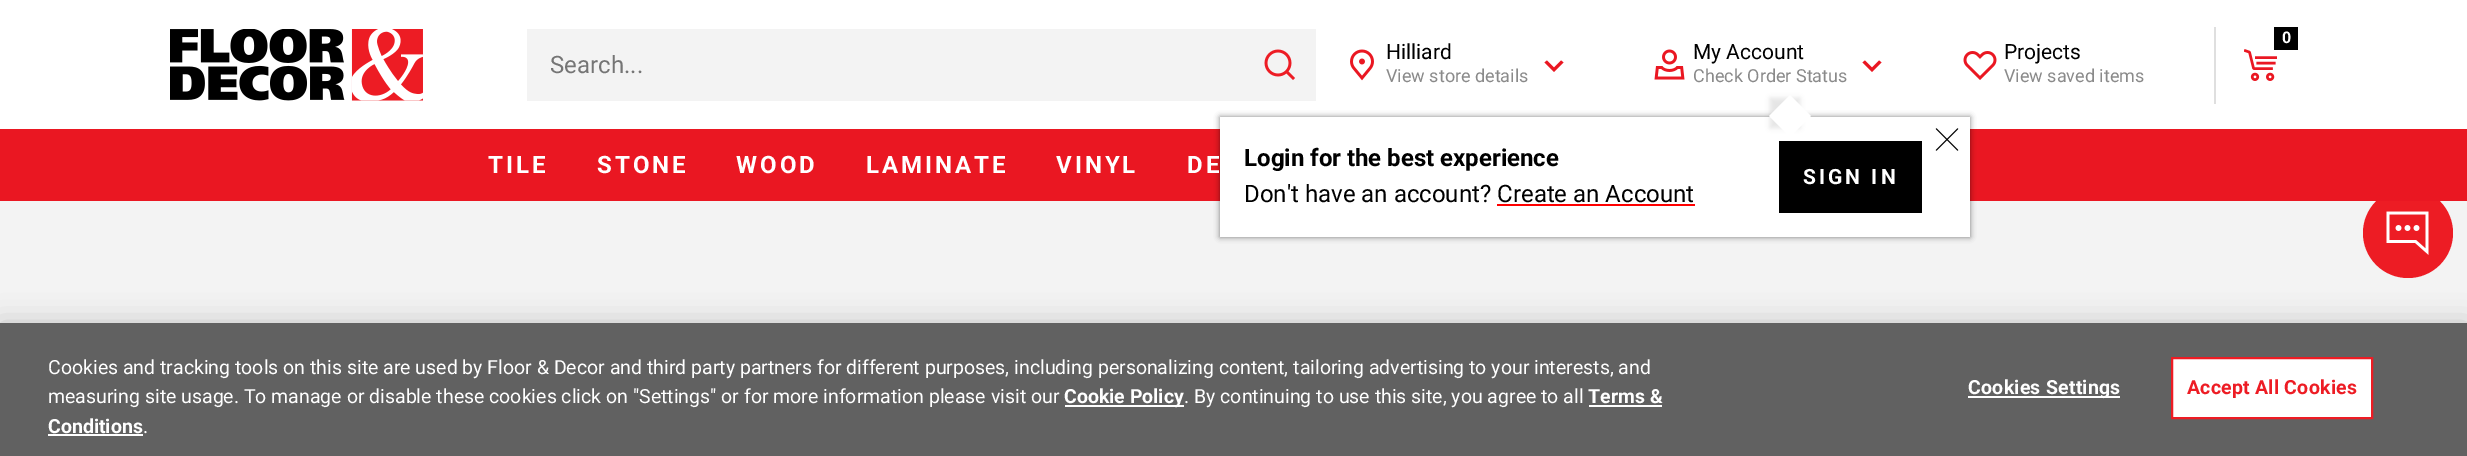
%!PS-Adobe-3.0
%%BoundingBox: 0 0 2467 456
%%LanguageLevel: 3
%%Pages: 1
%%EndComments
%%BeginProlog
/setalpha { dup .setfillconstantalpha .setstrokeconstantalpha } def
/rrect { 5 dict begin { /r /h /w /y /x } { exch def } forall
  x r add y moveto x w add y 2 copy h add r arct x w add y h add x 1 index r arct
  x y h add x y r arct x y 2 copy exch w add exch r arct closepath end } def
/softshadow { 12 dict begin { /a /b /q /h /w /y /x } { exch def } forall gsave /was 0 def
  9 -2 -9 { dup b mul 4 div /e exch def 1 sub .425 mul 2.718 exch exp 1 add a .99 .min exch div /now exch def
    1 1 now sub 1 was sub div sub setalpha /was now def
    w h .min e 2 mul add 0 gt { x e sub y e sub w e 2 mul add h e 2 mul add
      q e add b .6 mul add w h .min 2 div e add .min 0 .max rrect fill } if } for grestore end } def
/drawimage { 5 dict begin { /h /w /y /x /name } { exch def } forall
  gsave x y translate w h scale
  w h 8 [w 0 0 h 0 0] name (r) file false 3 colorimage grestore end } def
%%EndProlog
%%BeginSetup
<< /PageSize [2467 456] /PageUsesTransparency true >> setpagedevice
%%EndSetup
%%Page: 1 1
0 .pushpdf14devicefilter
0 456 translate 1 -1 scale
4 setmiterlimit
0.953 setgray
0 0 2467 456 rectfill
1 setgray
0 0 2467 129 rectfill
(images/1.raw) 170 29 253 72 drawimage
0.875 setgray
2214 27 2 77 rectfill
(images/2.raw) 2244 49 33 32 drawimage
0 setgray
2274 27 24 23 rectfill
(images/3.raw) 1350 49 24 32 drawimage
0.918 0.09 0.133 setrgbcolor
newpath 1561 60.5 moveto 1563.5 62.5 lineto 1554 72 lineto 1544.5 62.5 lineto 1547 60.5 lineto 1554 67.5 lineto closepath eofill
(images/4.raw) 1963 51 34 29 drawimage
0.953 setgray
527 29 789 72 rectfill
(images/5.raw) 1264 49 31 31 drawimage
(images/6.raw) 1654 49 31 31 drawimage
0.918 0.09 0.133 setrgbcolor
newpath 1879 60.5 moveto 1881.5 62.5 lineto 1872 72 lineto 1862.5 62.5 lineto 1865 60.5 lineto 1872 67.5 lineto closepath eofill
0.929 0.11 0.141 setrgbcolor
newpath 2408 233 45 0 360 arc closepath fill
0.918 0.09 0.133 setrgbcolor
0 129 2467 72 rectfill
0 setgray
1220 117 750 120 0 3 0.5 softshadow
1 setgray
1220 117 750 120 rectfill
0 setgray
1770 98 30 30 0 2.5 0.1 softshadow
1 setgray
newpath 1790 95 moveto 1811 116 lineto 1790 137 lineto 1769 116 lineto closepath fill
(images/7.raw) 1935 128 24 23 drawimage
1 0 0 setrgbcolor
1497 204 198 2 rectfill
0 setgray
1779 141 143 72 rectfill
(images/8.raw) 2386 211 43 44 drawimage
0 323 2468 133 0 13.5 0.2 softshadow
0.38 setgray
0 323 2467 133 rectfill
1 setgray
1065 405 119 2 rectfill
1589 405 73 2 rectfill
48 434 95 2 rectfill
1968 396 152 2 rectfill
newpath 2172 358 moveto 2372 358 lineto 2372 418 lineto 2172 418 lineto closepath gsave fill grestore
0.929 0.11 0.141 setrgbcolor
2 setlinewidth
stroke
/Roboto-Bold [16 0 0 -16 0 0] selectfont
1 setgray
2282 43 moveto (0) show
/Roboto-Regular [21 0 0 -21 0 0] selectfont
0 setgray
1386 59 moveto (Hilliard) show
/Roboto-Regular [18 0 0 -18 0 0] selectfont
0.541 setgray
1386 82 moveto (View store details) show
/Roboto-Regular [21 0 0 -21 0 0] selectfont
0 setgray
2004 59 moveto (Projects) show
/Roboto-Regular [18 0 0 -18 0 0] selectfont
0.541 setgray
2004 82 moveto (View saved items) show
/Roboto-Regular [24 0 0 -24 0 0] selectfont
0.459 setgray
550 73 moveto (Search...) show
/Roboto-Regular [21 0 0 -21 0 0] selectfont
0 setgray
1693 59 moveto (My Account) show
gsave
1694 66 153 24 rectclip
/Roboto-Regular [18 0 0 -18 0 0] selectfont
0.541 setgray
1693 82 moveto (Check Order Status) show
grestore
/Roboto-Bold [24 0 0 -24 0 0] selectfont
1244 166 moveto (Login for the best experience) show
/Roboto-Regular [24 0 0 -24 0 0] selectfont
1244 202 moveto (Don't have an account? Create an Account) show
/Roboto-Bold [21 0 0 -21 0 0] selectfont
1 setgray
1803 184 moveto 3 0 (SIGN IN) ashow
/Roboto-Bold [24 0 0 -24 0 0] selectfont
488 173 moveto 3 0 (TILE) ashow
597 173 moveto 3 0 (STONE) ashow
736 173 moveto 3 0 (WOOD) ashow
866 173 moveto 3 0 (LAMINATE) ashow
1056 173 moveto 3 0 (VINYL) ashow
1187 173 moveto 3 0 (DE) ashow
/Roboto-Regular [19.5 0 0 -19.5 0 0] selectfont
48 374 moveto (Cookies and tracking tools on this site are used by Floor & Decor and third party partners for different purposes, including personalizing content, tailoring advertising to your interests, and) show
48 403 moveto (measuring site usage. To manage or disable these cookies click on "Settings" or for more information please visit our) show
/Roboto-Bold [19.5 0 0 -19.5 0 0] selectfont
1064 403 moveto (Cookie Policy) show
/Roboto-Regular [19.5 0 0 -19.5 0 0] selectfont
1184 403 moveto (. By continuing to use this site, you agree to all) show
/Roboto-Bold [19.5 0 0 -19.5 0 0] selectfont
1588 403 moveto (Terms &) show
48 433 moveto (Conditions) show
/Roboto-Regular [19.5 0 0 -19.5 0 0] selectfont
143 433 moveto (.) show
/Roboto-Bold [19.5 0 0 -19.5 0 0] selectfont
1968 394 moveto 0.25 0 (Cookies Settings) ashow
0.929 0.11 0.141 setrgbcolor
2187 394 moveto 0.25 0 (Accept All Cookies) ashow
.poppdf14devicefilter showpage
%%EOF
